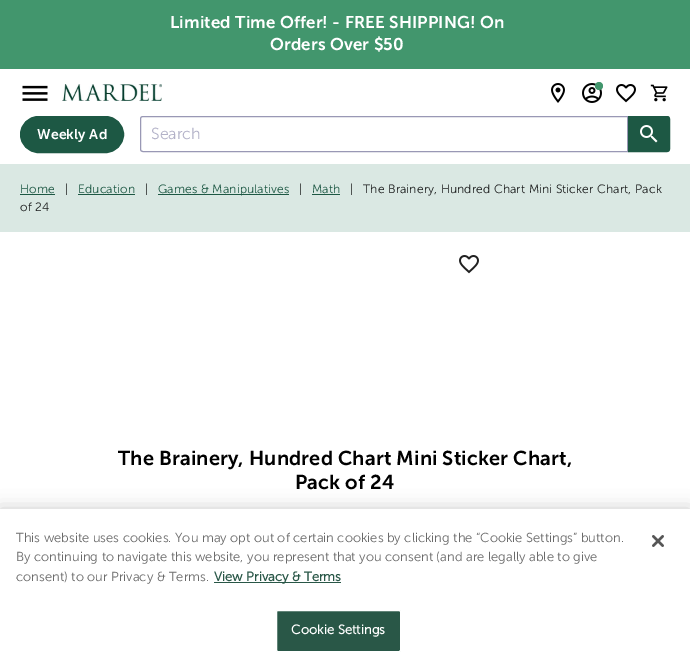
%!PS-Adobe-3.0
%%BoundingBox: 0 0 690 668
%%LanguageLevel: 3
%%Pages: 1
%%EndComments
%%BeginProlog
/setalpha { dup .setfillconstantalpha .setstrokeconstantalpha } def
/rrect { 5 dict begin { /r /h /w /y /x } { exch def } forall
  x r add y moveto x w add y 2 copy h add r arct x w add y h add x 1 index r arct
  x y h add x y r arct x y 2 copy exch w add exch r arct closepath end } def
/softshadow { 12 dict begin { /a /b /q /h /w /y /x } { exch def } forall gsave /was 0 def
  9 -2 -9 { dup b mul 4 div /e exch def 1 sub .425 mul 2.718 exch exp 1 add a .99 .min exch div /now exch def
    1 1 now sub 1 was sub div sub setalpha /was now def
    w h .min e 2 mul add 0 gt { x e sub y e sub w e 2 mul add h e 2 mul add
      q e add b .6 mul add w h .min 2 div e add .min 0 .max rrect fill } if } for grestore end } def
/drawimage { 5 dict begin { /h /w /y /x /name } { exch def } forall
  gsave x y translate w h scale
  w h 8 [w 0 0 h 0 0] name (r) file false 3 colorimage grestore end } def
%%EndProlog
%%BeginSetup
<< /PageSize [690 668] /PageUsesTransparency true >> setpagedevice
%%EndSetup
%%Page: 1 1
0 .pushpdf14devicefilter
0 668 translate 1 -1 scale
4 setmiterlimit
1 setgray
0 0 690 668 rectfill
0.259 0.588 0.427 setrgbcolor
0 0 690 69 rectfill
(images/1.raw) 22 85 26 16 drawimage
(images/2.raw) 62 84 100 17 drawimage
(images/3.raw) 551 83 14 20 drawimage
(images/4.raw) 582 83 20 20 drawimage
newpath 599 86 4 0 360 arc closepath fill
(images/5.raw) 616 84 20 19 drawimage
(images/6.raw) 650 84 18 18 drawimage
0.114 0.345 0.267 setrgbcolor
20.5 116.5 103 36 18 rrect gsave fill grestore
stroke
0.6 0.596 0.71 setrgbcolor
newpath 143 116.5 moveto 627.5 116.5 lineto 627.5 151.5 lineto 143 151.5 lineto 141.5 151.5 140.5 150.5 140.5 149 curveto 140.5 119 lineto 140.5 117.5 141.5 116.5 143 116.5 curveto closepath stroke
0.114 0.345 0.267 setrgbcolor
newpath 628.5 116.5 moveto 667 116.5 lineto 668.5 116.5 669.5 117.5 669.5 119 curveto 669.5 149 lineto 669.5 150.5 668.5 151.5 667 151.5 curveto 628.5 151.5 lineto closepath gsave fill grestore
stroke
(images/7.raw) 640 125 18 18 drawimage
0.855 0.91 0.89 setrgbcolor
0 164 690 68 rectfill
0.114 0.345 0.267 setrgbcolor
20 194 35 1 rectfill
78 194 57 1 rectfill
158 194 131 1 rectfill
312 194 28 1 rectfill
(images/8.raw) 459 255 20 19 drawimage
0 setgray
0 509 690 159 0 9 0.2 softshadow
1 setgray
0 509 690 159 rectfill
0.161 0.341 0.278 setrgbcolor
214 582 127 1 rectfill
276.5 610.5 124 41 1.5 rrect gsave fill grestore
1 setgray
stroke
(images/9.raw) 652 535 12 12 drawimage
/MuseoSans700-SemiBold [17 0 0 -17 0 0] selectfont
170 28 moveto 0.15 0 (Limited Time Offer! - FREE SHIPPING! On) ashow
270 50 moveto 0.15 0 (Orders Over $50) ashow
/MuseoSans700-SemiBold [14 0 0 -14 0 0] selectfont
37 139 moveto 0.15 0 (Weekly Ad) ashow
/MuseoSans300-Light [16 0 0 -16 0 0] selectfont
0.702 0.698 0.784 setrgbcolor
151 139 moveto (Search) show
/MuseoSans300-Light [12.1 0 0 -12.1 0 0] selectfont
0.114 0.345 0.267 setrgbcolor
20 193 moveto 0.15 0 (Home) ashow
0.11 0.118 0.118 setrgbcolor
65 193 moveto 0.15 0 (|) ashow
0.114 0.345 0.267 setrgbcolor
78 193 moveto 0.15 0 (Education) ashow
0.11 0.118 0.118 setrgbcolor
145 193 moveto 0.15 0 (|) ashow
0.114 0.345 0.267 setrgbcolor
158 193 moveto 0.15 0 (Games & Manipulatives) ashow
0.11 0.118 0.118 setrgbcolor
299 193 moveto 0.15 0 (|) ashow
0.114 0.345 0.267 setrgbcolor
312 193 moveto 0.15 0 (Math) ashow
0.11 0.118 0.118 setrgbcolor
350 193 moveto 0.15 0 (|) ashow
363 193 moveto 0.15 0 (The Brainery, Hundred Chart Mini Sticker Chart, Pack) ashow
20 211 moveto 0.15 0 (of 24) ashow
/MuseoSans700-SemiBold [20 0 0 -20 0 0] selectfont
0 setgray
118 465 moveto 0.15 0 (The Brainery, Hundred Chart Mini Sticker Chart,) ashow
295 489 moveto 0.15 0 (Pack of 24) ashow
/MuseoSans300-Light [13 0 0 -13 0 0] selectfont
0.412 setgray
16 542 moveto (This website uses cookies. You may opt out of certain cookies by clicking the “Cookie Settings” button.) show
16 561 moveto (By continuing to navigate this website, you represent that you consent \(and are legally able to give) show
16 581 moveto (consent\) to our Privacy & Terms.) show
/MuseoSans300-Bold [13 0 0 -13 0 0] selectfont
0.161 0.341 0.278 setrgbcolor
214 581 moveto (View Privacy & Terms) show
1 setgray
291 634 moveto 0.1 0 (Cookie Settings) ashow
.poppdf14devicefilter showpage
%%EOF
